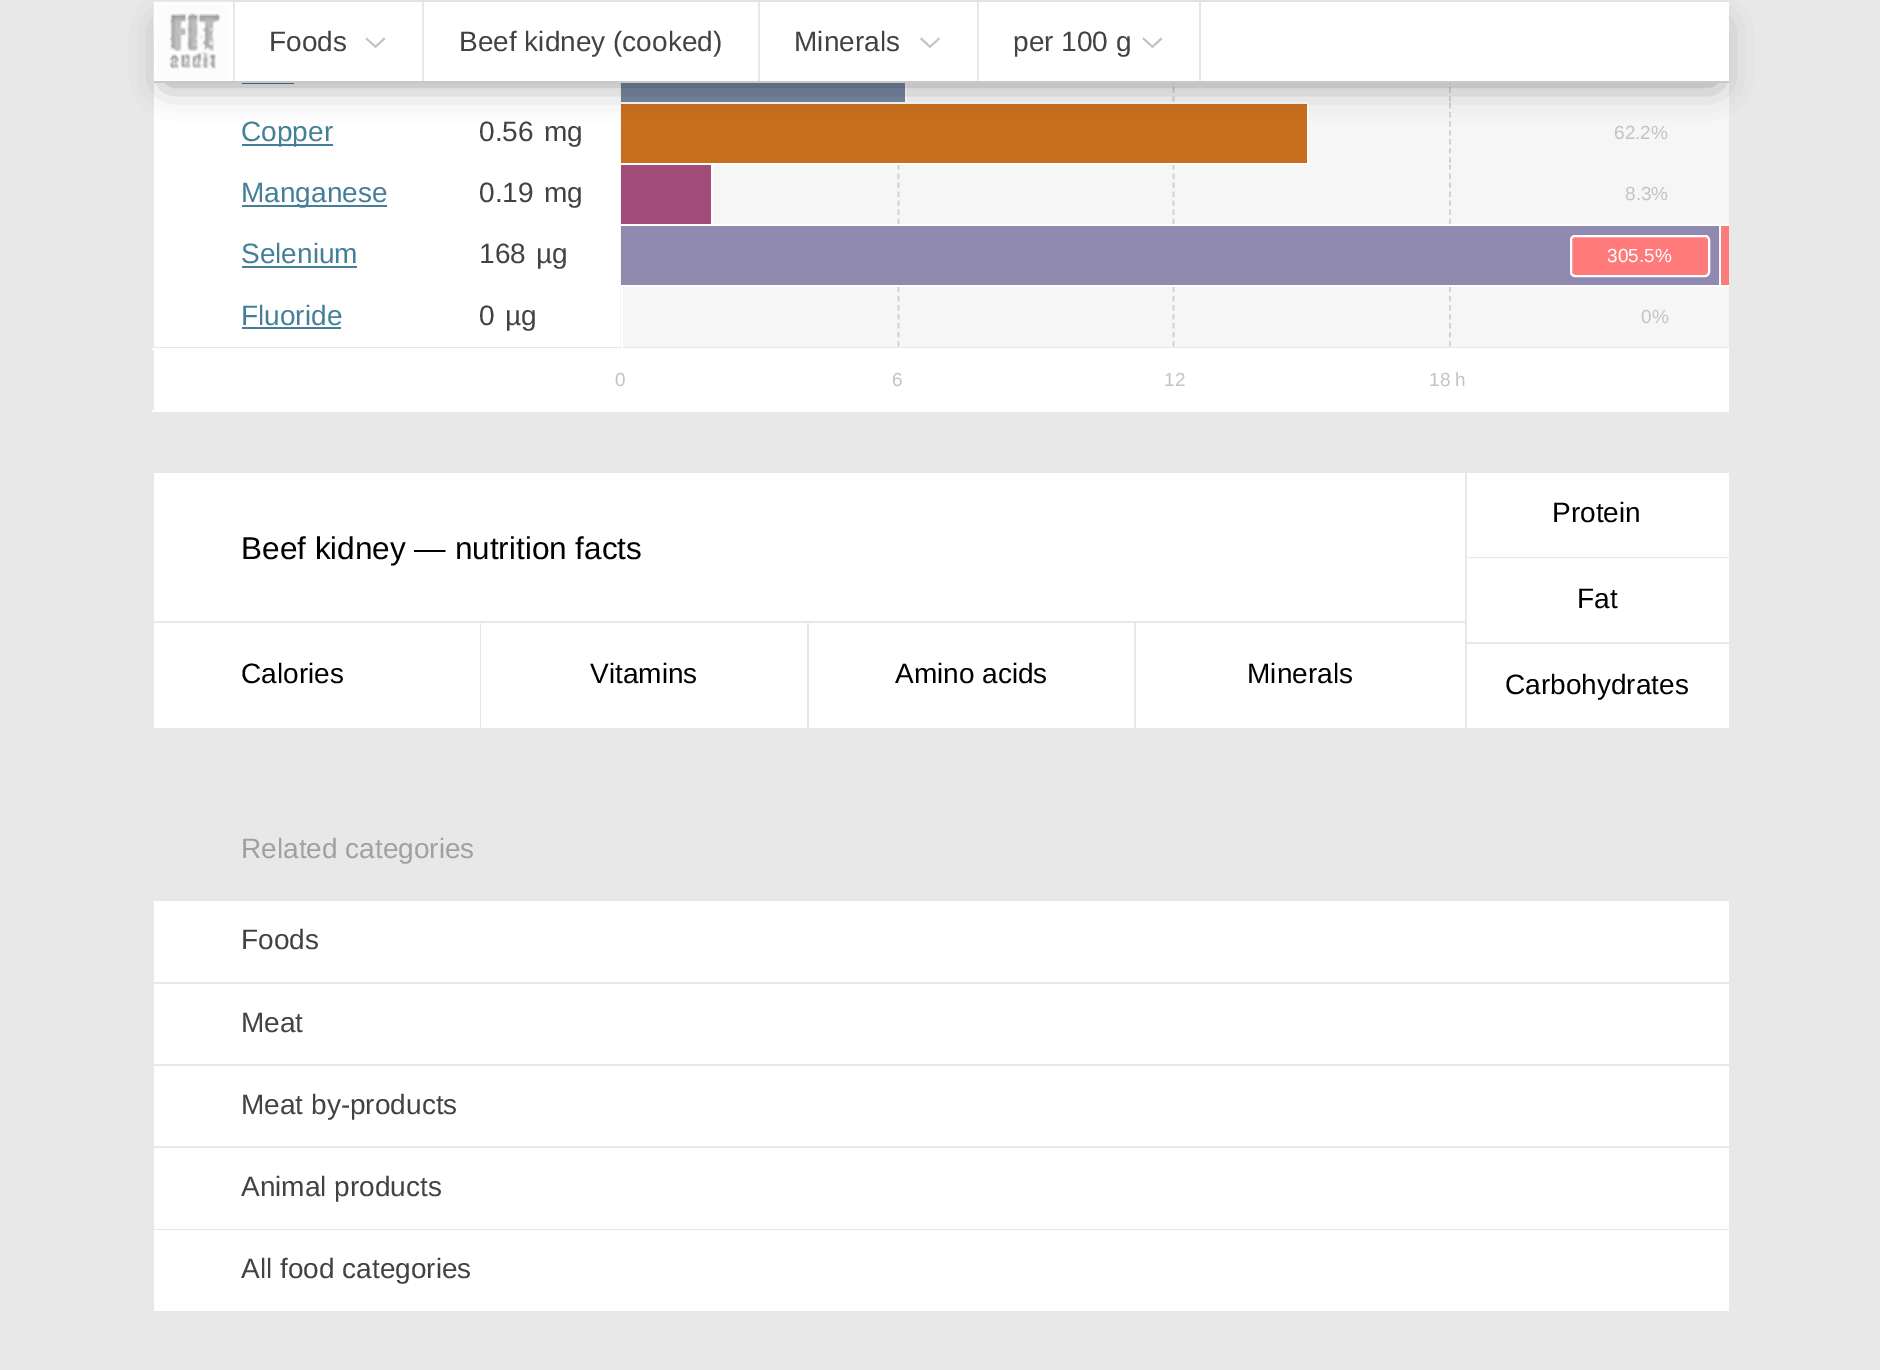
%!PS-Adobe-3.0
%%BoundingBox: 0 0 1880 1370
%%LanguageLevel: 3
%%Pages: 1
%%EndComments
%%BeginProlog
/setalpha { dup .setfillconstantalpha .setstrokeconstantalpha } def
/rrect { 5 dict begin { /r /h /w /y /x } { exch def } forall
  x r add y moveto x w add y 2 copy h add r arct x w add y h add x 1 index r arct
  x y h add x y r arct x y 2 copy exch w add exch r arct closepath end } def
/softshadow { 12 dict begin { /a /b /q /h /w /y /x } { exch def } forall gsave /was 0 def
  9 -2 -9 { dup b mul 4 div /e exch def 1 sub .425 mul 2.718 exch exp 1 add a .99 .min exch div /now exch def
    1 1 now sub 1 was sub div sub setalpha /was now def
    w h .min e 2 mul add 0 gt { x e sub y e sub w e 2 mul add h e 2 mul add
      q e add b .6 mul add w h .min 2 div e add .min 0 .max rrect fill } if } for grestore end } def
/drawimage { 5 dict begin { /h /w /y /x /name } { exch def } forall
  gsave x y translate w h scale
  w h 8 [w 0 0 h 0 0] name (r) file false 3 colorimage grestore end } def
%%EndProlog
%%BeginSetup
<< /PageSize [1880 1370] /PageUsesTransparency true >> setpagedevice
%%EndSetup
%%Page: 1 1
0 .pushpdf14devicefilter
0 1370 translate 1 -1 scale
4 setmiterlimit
0.91 setgray
0 0 1880 1370 rectfill
1 setgray
154 83 466 19 rectfill
0.271 0.498 0.592 setrgbcolor
242 83 52 1 rectfill
0.965 0.965 0.969 setrgbcolor
620 83 1109 141 rectfill
0.463 0.533 0.631 setrgbcolor
621 83 284 19 rectfill
1 setgray
905 83 2 20 rectfill
0.824 setgray
1.8 setlinewidth
[5.25 3.8] 0 setdash
newpath 1173.5 42 moveto 1173.5 101.5 lineto stroke
newpath 1450 42 moveto 1450 101.5 lineto stroke
1 setgray
154 102 466 61 rectfill
0.784 0.435 0.114 setrgbcolor
621 104 686 59 rectfill
1 setgray
621 102 688 2 rectfill
1307 102 2 63 rectfill
0.824 setgray
newpath 1450 103 moveto 1450 163 lineto stroke
0 setgray
166 26 1551 58 0 16.5 0.4 softshadow
1 setgray
154 2 1575 79 rectfill
0.894 setgray
154 0 1575 1 rectfill
0.784 setgray
154 81 1575 2 rectfill
0.91 setgray
233 2 2 79 rectfill
(images/1.raw) 153 1 80 79 drawimage
422 2 2 79 rectfill
0.765 setgray
newpath 366.5 37.5 moveto 365.5 39 lineto 375.5 48 lineto 385.5 39 lineto 384 37.5 lineto 375.5 45.5 lineto closepath fill
0.91 setgray
758 2 2 79 rectfill
977 2 2 79 rectfill
0.765 setgray
newpath 921.5 37.5 moveto 920 39 lineto 930 48 lineto 940 39 lineto 939 37.5 lineto 930 45.5 lineto closepath fill
0.91 setgray
1199 2 2 79 rectfill
0.765 setgray
newpath 1143.5 37.5 moveto 1142.5 39 lineto 1152.5 48 lineto 1162.5 39 lineto 1161 37.5 lineto 1152.5 45.5 lineto closepath fill
0.271 0.498 0.592 setrgbcolor
242 144 91 2 rectfill
0.824 setgray
newpath 898.5 164.5 moveto 898.5 224 lineto stroke
newpath 1173.5 164.5 moveto 1173.5 224 lineto stroke
1 setgray
713 163 596 2 rectfill
154 163 466 61 rectfill
0.271 0.498 0.592 setrgbcolor
242 205 145 2 rectfill
0.635 0.298 0.475 setrgbcolor
621 165 90 59 rectfill
1 setgray
621 163 91 2 rectfill
711 163 2 63 rectfill
0.824 setgray
newpath 1450 164.5 moveto 1450 224 lineto stroke
1 setgray
154 224 466 61 rectfill
0.271 0.498 0.592 setrgbcolor
242 266 115 2 rectfill
0.965 0.965 0.969 setrgbcolor
620 224 1 61 rectfill
0.565 0.537 0.69 setrgbcolor
621 226 1098 59 rectfill
1 setgray
621 224 1108 2 rectfill
0.965 0.965 0.969 setrgbcolor
620 285 1109 62 rectfill
1 setgray
621 285 1108 2 rectfill
1 0.482 0.482 setrgbcolor
1571 236 138 40 4 rrect gsave fill grestore
1 setgray
2 setlinewidth
[] 0 setdash
stroke
1 0.482 0.482 setrgbcolor
1721 226 8 59 rectfill
1 setgray
1719 226 2 59 rectfill
154 285 466 62 rectfill
0.271 0.498 0.592 setrgbcolor
242 327 99 2 rectfill
1 setgray
621 285 2 63 rectfill
0.824 setgray
1.8 setlinewidth
[5.25 3.8] 0 setdash
newpath 1450 287 moveto 1450 346.5 lineto stroke
newpath 898.5 287 moveto 898.5 346.5 lineto stroke
newpath 1173.5 287 moveto 1173.5 346.5 lineto stroke
1 setgray
152 348 2 2 rectfill
154 348 1575 62 rectfill
152 410 1577 2 rectfill
154 473 1311 148 rectfill
154 623 326 105 rectfill
481 623 326 105 rectfill
809 623 325 105 rectfill
1136 623 329 105 rectfill
1467 473 262 84 rectfill
1467 558 262 84 rectfill
1467 644 262 84 rectfill
154 901 1575 81 rectfill
154 984 1575 80 rectfill
154 1066 1575 80 rectfill
154 1148 1575 81 rectfill
154 1230 1575 81 rectfill
/LiberationSans-Regular [28 0 0 -28 0 0] selectfont
0.263 0.259 0.259 setrgbcolor
269 51 moveto (Foods) show
459 51 moveto (Beef kidney \(cooked\)) show
794 51 moveto (Minerals) show
1013 51 moveto (per 100 g) show
0.271 0.498 0.592 setrgbcolor
241 141 moveto (Copper) show
0.263 0.259 0.259 setrgbcolor
479 141 moveto (0.56) show
544 141 moveto (mg) show
/LiberationSans-Regular [19 0 0 -19 0 0] selectfont
0.765 setgray
1614 139 moveto (62.2%) show
/LiberationSans-Regular [28 0 0 -28 0 0] selectfont
0.271 0.498 0.592 setrgbcolor
241 202 moveto (Manganese) show
0.263 0.259 0.259 setrgbcolor
479 202 moveto (0.19) show
544 202 moveto (mg) show
/LiberationSans-Regular [19 0 0 -19 0 0] selectfont
0.765 setgray
1625 200 moveto (8.3%) show
/LiberationSans-Regular [28 0 0 -28 0 0] selectfont
0.271 0.498 0.592 setrgbcolor
241 263 moveto (Selenium) show
0.263 0.259 0.259 setrgbcolor
479 263 moveto (168) show
536 263 moveto (µg) show
/LiberationSans-Regular [19 0 0 -19 0 0] selectfont
1 setgray
1607 262 moveto (305.5%) show
/LiberationSans-Regular [28 0 0 -28 0 0] selectfont
0.271 0.498 0.592 setrgbcolor
241 325 moveto (Fluoride) show
0.263 0.259 0.259 setrgbcolor
479 325 moveto (0) show
505 325 moveto (µg) show
/LiberationSans-Regular [19 0 0 -19 0 0] selectfont
0.765 setgray
1641 323 moveto (0%) show
615 386 moveto (0) show
892 386 moveto (6) show
1164 386 moveto (12) show
1429 386 moveto (18 h) show
/LiberationSans-Regular [31.5 0 0 -31.5 0 0] selectfont
0 setgray
241 559 moveto (Beef kidney — nutrition facts) show
/LiberationSans-Regular [28 0 0 -28 0 0] selectfont
241 683 moveto (Calories) show
590 683 moveto (Vitamins) show
895 683 moveto (Amino acids) show
1247 683 moveto (Minerals) show
1552 522 moveto (Protein) show
1577 608 moveto (Fat) show
1505 694 moveto (Carbohydrates) show
0.627 setgray
241 858 moveto (Related categories) show
0.263 0.259 0.259 setrgbcolor
241 949 moveto (Foods) show
241 1032 moveto (Meat) show
241 1114 moveto (Meat by-products) show
241 1196 moveto (Animal products) show
241 1278 moveto (All food categories) show
.poppdf14devicefilter showpage
%%EOF
